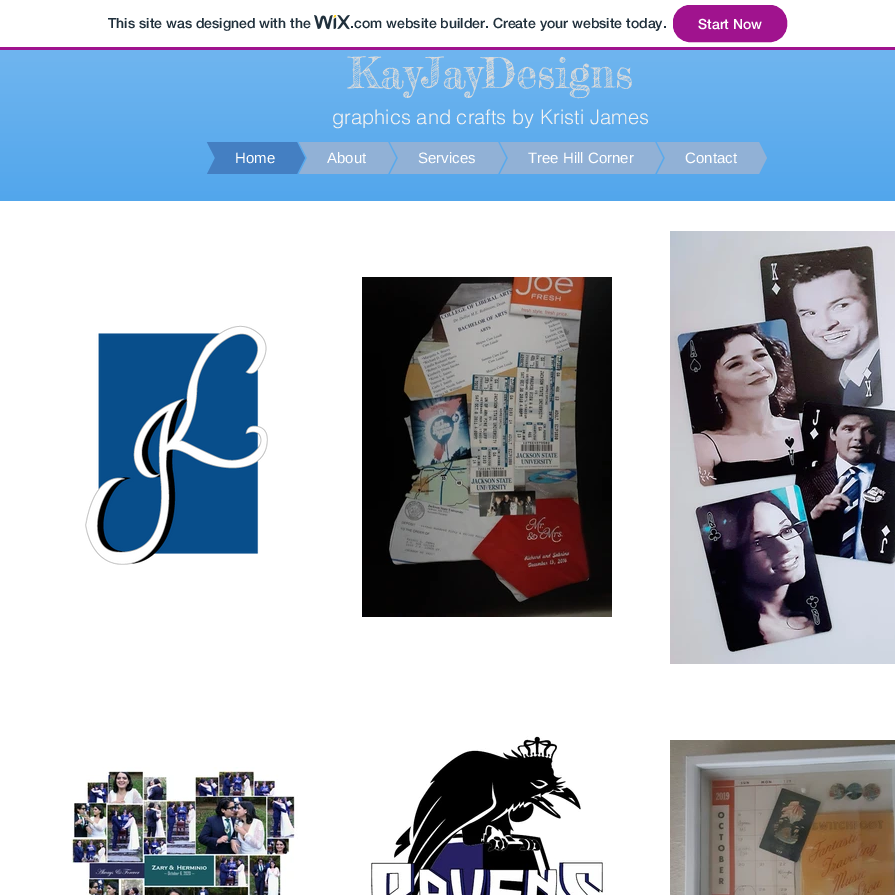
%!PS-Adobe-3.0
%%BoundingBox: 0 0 895 895
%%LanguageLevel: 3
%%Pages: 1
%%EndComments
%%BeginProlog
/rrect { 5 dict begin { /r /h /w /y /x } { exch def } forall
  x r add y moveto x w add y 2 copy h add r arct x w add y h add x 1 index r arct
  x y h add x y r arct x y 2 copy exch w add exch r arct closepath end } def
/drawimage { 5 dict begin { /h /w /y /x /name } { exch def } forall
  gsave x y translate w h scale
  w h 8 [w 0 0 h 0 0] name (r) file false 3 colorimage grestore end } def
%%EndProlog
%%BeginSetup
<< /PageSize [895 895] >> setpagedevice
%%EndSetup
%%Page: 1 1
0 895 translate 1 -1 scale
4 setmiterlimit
1 setgray
0 0 895 895 rectfill
0.627 0.075 0.557 setrgbcolor
0 47 895 3 rectfill
(images/1.raw) 314 15 36 15 drawimage
673.5 5.5 113 36 16.5 rrect gsave fill grestore
stroke
0.239 0.608 0.914 setrgbcolor
0 50 895 151 rectfill
(images/2.raw) 0 50 895 151 drawimage
gsave
145 142 70 32 rectclip
0.267 0.498 0.761 setrgbcolor
newpath 145 18 moveto 215 18 lineto 215 158 lineto closepath 215 298 moveto 145 298 lineto 215 158 lineto closepath fill
grestore
0.267 0.498 0.761 setrgbcolor
215 142 20 32 rectfill
gsave
235 142 70 32 rectclip
newpath 305 158 moveto 235 158 lineto 235 18 lineto closepath fill
newpath 235 158 moveto 305 158 lineto 235 298 lineto closepath fill
grestore
gsave
237 142 70 32 rectclip
0.569 0.694 0.839 setrgbcolor
newpath 237 18 moveto 307 18 lineto 307 158 lineto closepath 307 298 moveto 237 298 lineto 307 158 lineto closepath fill
grestore
0.569 0.694 0.839 setrgbcolor
307 142 19 32 rectfill
gsave
326 142 70 32 rectclip
newpath 396 158 moveto 326 158 lineto 326 18 lineto closepath fill
newpath 326 158 moveto 396 158 lineto 326 298 lineto closepath fill
grestore
gsave
328 142 70 32 rectclip
newpath 328 18 moveto 398 18 lineto 398 158 lineto closepath 398 298 moveto 328 298 lineto 398 158 lineto closepath fill
grestore
398 142 38 32 rectfill
gsave
436 142 70 32 rectclip
newpath 506 158 moveto 436 158 lineto 436 18 lineto closepath fill
newpath 436 158 moveto 506 158 lineto 436 298 lineto closepath fill
grestore
gsave
438 142 70 32 rectclip
newpath 438 18 moveto 508 18 lineto 508 158 lineto closepath 508 298 moveto 438 298 lineto 508 158 lineto closepath fill
grestore
508 142 85 32 rectfill
gsave
593 142 70 32 rectclip
newpath 663 158 moveto 593 158 lineto 593 18 lineto closepath fill
newpath 593 158 moveto 663 158 lineto 593 298 lineto closepath fill
grestore
gsave
595 142 70 32 rectclip
newpath 595 18 moveto 665 18 lineto 665 158 lineto closepath 665 298 moveto 595 298 lineto 665 158 lineto closepath fill
grestore
665 142 32 32 rectfill
gsave
697 142 70 32 rectclip
newpath 767 158 moveto 697 158 lineto 697 18 lineto closepath fill
newpath 697 158 moveto 767 158 lineto 697 298 lineto closepath fill
grestore
(images/3.raw) 85 325 183 240 drawimage
(images/4.raw) 362 277 250 340 drawimage
(images/5.raw) 670 231 225 433 drawimage
(images/6.raw) 71 767 227 128 drawimage
(images/7.raw) 370 736 236 159 drawimage
(images/8.raw) 670 740 225 155 drawimage
/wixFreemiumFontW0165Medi-Medium [14 0 0 -14 0 0] selectfont
0.125 0.188 0.235 setrgbcolor
108 28 moveto (This site was designed with the) show
350 28 moveto (.com website builder. Create your website today.) show
1 setgray
698 29 moveto (Start Now) show
/FrederickatheGreat-Regular [42 0 0 -42 0 0] selectfont
0.859 setgray
348 88 moveto (KayJayDesigns) show
/helvetica-Light [20 0 0 -20 0 0] selectfont
0.957 0.953 0.949 setrgbcolor
332 124 moveto (graphics and crafts by Kristi James) show
/LiberationSans-Regular [15 0 0 -15 0 0] selectfont
1 setgray
235 163 moveto (Home) show
327 163 moveto (About) show
418 163 moveto (Services) show
528 163 moveto (Tree Hill Corner) show
685 163 moveto (Contact) show
showpage
%%EOF
